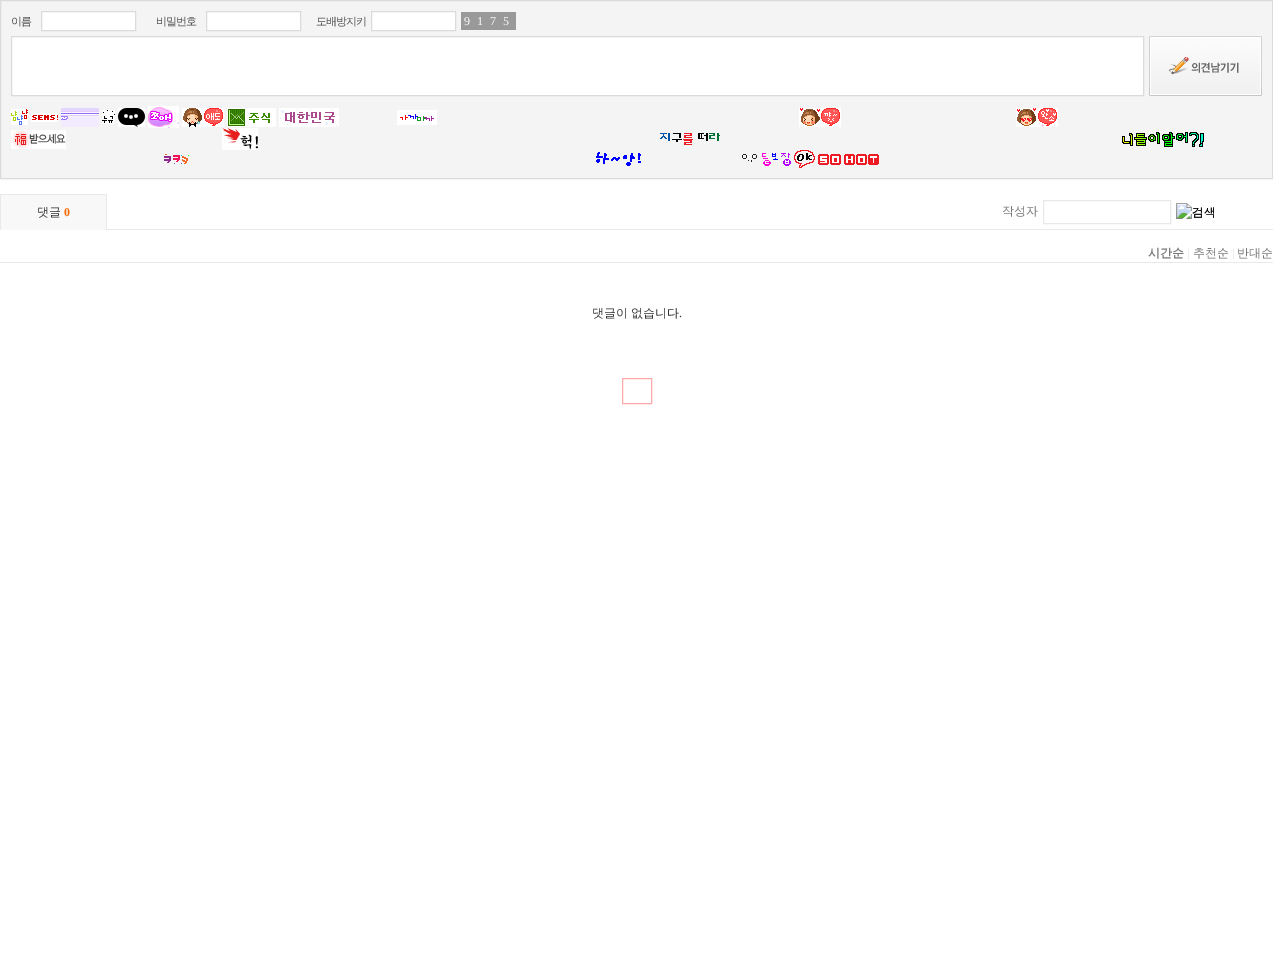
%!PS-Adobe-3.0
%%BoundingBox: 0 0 1273 963
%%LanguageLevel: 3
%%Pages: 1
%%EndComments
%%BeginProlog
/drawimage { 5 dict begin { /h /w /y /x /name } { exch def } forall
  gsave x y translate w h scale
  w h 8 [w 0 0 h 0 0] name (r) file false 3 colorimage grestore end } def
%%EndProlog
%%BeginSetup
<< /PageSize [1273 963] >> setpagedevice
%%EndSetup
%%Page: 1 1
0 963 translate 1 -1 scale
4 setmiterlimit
1 setgray
0 0 1273 963 rectfill
0.957 setgray
newpath 0.5 0.5 moveto 1272.5 0.5 lineto 1272.5 178.5 lineto 0.5 178.5 lineto closepath gsave fill grestore
0.859 setgray
stroke
1 setgray
newpath 41.5 11.5 moveto 135.5 11.5 lineto 135.5 30.5 lineto 41.5 30.5 lineto closepath gsave fill grestore
0.859 setgray
stroke
1 setgray
newpath 206.5 11.5 moveto 300.5 11.5 lineto 300.5 30.5 lineto 206.5 30.5 lineto closepath gsave fill grestore
0.859 setgray
stroke
1 setgray
newpath 371.5 11.5 moveto 455.5 11.5 lineto 455.5 30.5 lineto 371.5 30.5 lineto closepath gsave fill grestore
0.859 setgray
stroke
0.6 setgray
461 12 55 18 rectfill
1 setgray
newpath 11.5 36.5 moveto 1143.5 36.5 lineto 1143.5 95.5 lineto 11.5 95.5 lineto closepath gsave fill grestore
0.859 setgray
stroke
(images/1.raw) 1149 36 113 60 drawimage
(images/2.raw) 11 109 17 16 drawimage
(images/3.raw) 31 113 27 9 drawimage
(images/4.raw) 61 108 38 19 drawimage
(images/5.raw) 102 110 13 14 drawimage
(images/6.raw) 118 108 27 19 drawimage
(images/7.raw) 148 106 31 22 drawimage
(images/8.raw) 182 108 42 19 drawimage
(images/9.raw) 227 108 49 19 drawimage
(images/10.raw) 279 108 60 19 drawimage
(images/11.raw) 397 110 40 15 drawimage
(images/12.raw) 799 108 42 19 drawimage
(images/13.raw) 1016 108 42 19 drawimage
(images/14.raw) 11 130 55 19 drawimage
(images/15.raw) 222 128 36 22 drawimage
(images/16.raw) 660 133 60 12 drawimage
(images/17.raw) 1122 132 82 15 drawimage
(images/18.raw) 164 154 25 10 drawimage
(images/19.raw) 596 152 45 14 drawimage
(images/20.raw) 742 153 49 13 drawimage
(images/21.raw) 794 150 21 18 drawimage
(images/22.raw) 818 154 61 11 drawimage
0.973 setgray
1 195 105 35 rectfill
0.914 setgray
0 194 107 1 rectfill
106 194 1 36 rectfill
0 194 1 36 rectfill
1043.5 200.5 127 23 rectstroke
(images/23.raw) 1176 203 38 16 drawimage
107 229 1166 1 rectfill
0 262 1273 1 rectfill
1 0.667 0.667 setrgbcolor
622.5 378.5 29 25 rectstroke
/WenQuanYiZenHei-Medium [11 0 0 -11 0 0] selectfont
0.333 setgray
11 25 moveto -1 0 (이름) ashow
156 25 moveto -1 0 (비밀번호) ashow
316 25 moveto -1 0 (도배방지키) ashow
/LiberationSerif-Regular [12 0 0 -12 0 0] selectfont
1 setgray
464 25 moveto (9) show
477 25 moveto (1) show
490 25 moveto (7) show
503 25 moveto (5) show
/WenQuanYiZenHei-Medium [12 0 0 -12 0 0] selectfont
0.2 setgray
37 216 moveto (댓글) show
/LiberationSerif-Bold [12 0 0 -12 0 0] selectfont
0.957 0.42 0.027 setrgbcolor
64 216 moveto (0) show
/WenQuanYiZenHei-Medium [12 0 0 -12 0 0] selectfont
0.475 setgray
1002 215 moveto (작성자) show
/Dotum-Regular [12 0 0 -12 0 0] selectfont
0 setgray
1192 217 moveto (검색) show
/WenQuanYiZenHei-Bold [12 0 0 -12 0 0] selectfont
0.475 setgray
1148 257 moveto (시간순) show
/LiberationSerif-Regular [12 0 0 -12 0 0] selectfont
0.882 0.863 0.886 setrgbcolor
1187 257 moveto (|) show
/WenQuanYiZenHei-Medium [12 0 0 -12 0 0] selectfont
0.475 setgray
1193 257 moveto (추천순) show
/LiberationSerif-Regular [12 0 0 -12 0 0] selectfont
0.882 0.863 0.886 setrgbcolor
1232 257 moveto (|) show
/WenQuanYiZenHei-Medium [12 0 0 -12 0 0] selectfont
0.475 setgray
1237 257 moveto (반대순) show
0.2 setgray
592 317 moveto -1 0 32 (댓글이 없습니다) widthshow
/LiberationSerif-Regular [12 0 0 -12 0 0] selectfont
679 317 moveto (.) show
showpage
%%EOF
